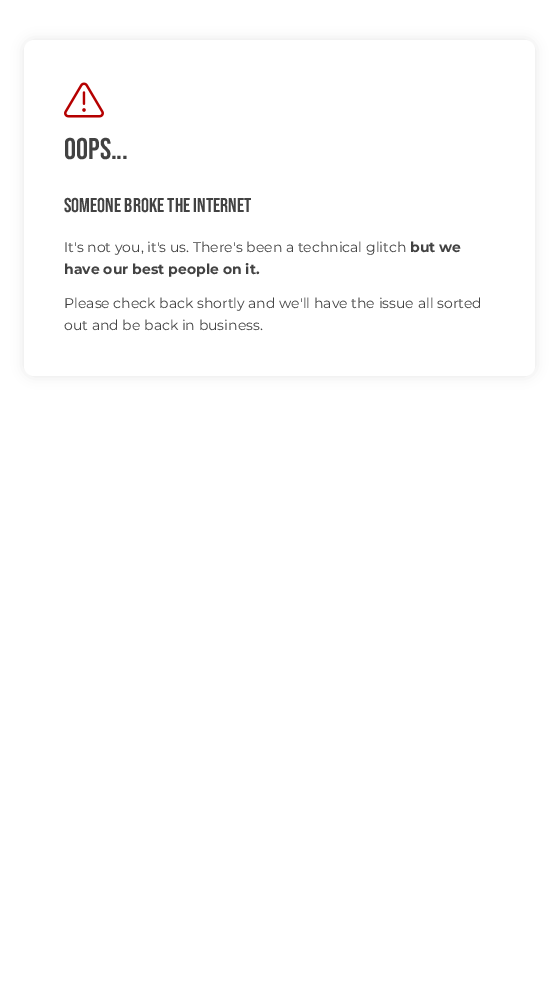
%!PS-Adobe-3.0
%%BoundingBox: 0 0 559 1004
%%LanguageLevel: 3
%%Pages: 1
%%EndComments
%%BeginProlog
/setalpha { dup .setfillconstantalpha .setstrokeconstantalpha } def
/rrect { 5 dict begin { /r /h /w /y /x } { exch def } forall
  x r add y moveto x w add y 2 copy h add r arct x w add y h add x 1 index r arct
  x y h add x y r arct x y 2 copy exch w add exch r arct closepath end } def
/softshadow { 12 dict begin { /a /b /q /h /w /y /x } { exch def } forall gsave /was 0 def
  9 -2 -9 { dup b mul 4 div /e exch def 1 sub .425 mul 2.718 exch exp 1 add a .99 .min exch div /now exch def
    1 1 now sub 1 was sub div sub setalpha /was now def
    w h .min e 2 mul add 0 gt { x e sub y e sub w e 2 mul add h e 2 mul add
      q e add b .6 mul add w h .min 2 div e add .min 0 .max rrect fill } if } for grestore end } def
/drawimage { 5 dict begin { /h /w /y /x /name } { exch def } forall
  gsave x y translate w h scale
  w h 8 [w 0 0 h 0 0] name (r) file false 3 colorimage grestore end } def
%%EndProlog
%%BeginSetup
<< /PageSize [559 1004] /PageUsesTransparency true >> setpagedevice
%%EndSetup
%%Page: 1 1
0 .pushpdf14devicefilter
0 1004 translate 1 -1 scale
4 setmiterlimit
1 setgray
0 0 559 1004 rectfill
0 setgray
24 40 511 336 10 6 0.1 softshadow
1 setgray
24 40 511 336 10 rrect fill
(images/1.raw) 64 82 40 36 drawimage
/BebasNeue-Regular [30 0 0 -30 0 0] selectfont
0.259 setgray
64 159 moveto (Oops...) show
/BebasNeue-Regular [20 0 0 -20 0 0] selectfont
64 212 moveto (Someone broke the internet) show
/Montserrat-Regular [14 0 0 -14 0 0] selectfont
64 252 moveto (It's not you, it's us. There's been a technical glitch) show
/Montserrat-Bold [14 0 0 -14 0 0] selectfont
410 252 moveto (but we) show
64 274 moveto (have our best people on it.) show
/Montserrat-Regular [14 0 0 -14 0 0] selectfont
64 308 moveto (Please check back shortly and we'll have the issue all sorted) show
64 330 moveto (out and be back in business.) show
.poppdf14devicefilter showpage
%%EOF
